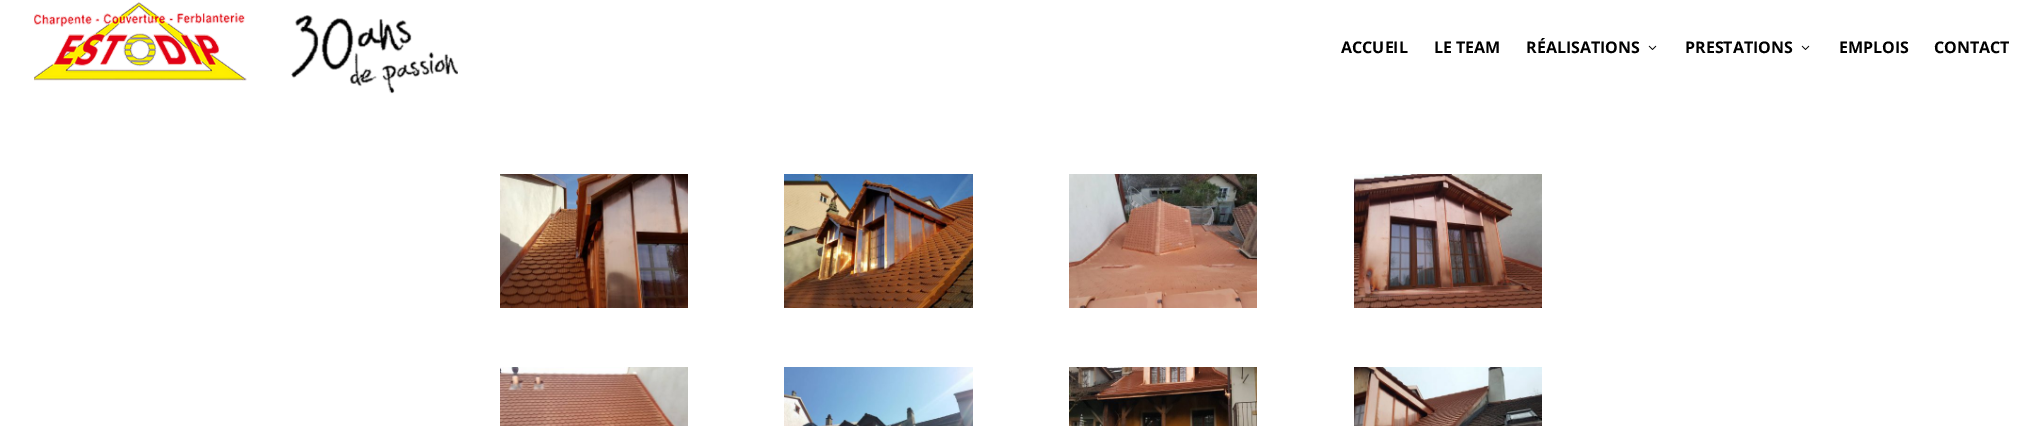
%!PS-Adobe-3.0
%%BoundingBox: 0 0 2042 426
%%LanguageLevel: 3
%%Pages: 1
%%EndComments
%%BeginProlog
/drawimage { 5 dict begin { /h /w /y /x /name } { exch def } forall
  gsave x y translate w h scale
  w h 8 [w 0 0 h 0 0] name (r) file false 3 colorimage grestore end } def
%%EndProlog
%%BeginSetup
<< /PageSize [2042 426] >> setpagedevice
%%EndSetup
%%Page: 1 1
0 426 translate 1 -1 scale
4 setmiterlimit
1 setgray
0 0 2042 426 rectfill
(images/1.raw) 34 2 424 92 drawimage
(images/2.raw) 1648 45 9 5 drawimage
(images/2.raw) 1801 45 9 5 drawimage
(images/3.raw) 500 174 188 134 drawimage
(images/4.raw) 784 174 189 134 drawimage
(images/5.raw) 1069 174 188 134 drawimage
(images/6.raw) 1354 174 188 134 drawimage
(images/7.raw) 500 367 188 59 drawimage
(images/8.raw) 784 367 189 59 drawimage
(images/9.raw) 1069 367 188 59 drawimage
(images/10.raw) 1354 367 188 59 drawimage
/OpenSans-Bold [16 0 0 -16 0 0] selectfont
0 setgray
1341 53 moveto (ACCUEIL) show
1434 53 moveto (LE TEAM) show
1526 53 moveto (RÉALISATIONS) show
1685 53 moveto (PRESTATIONS) show
1839 53 moveto (EMPLOIS) show
1934 53 moveto (CONTACT) show
showpage
%%EOF
